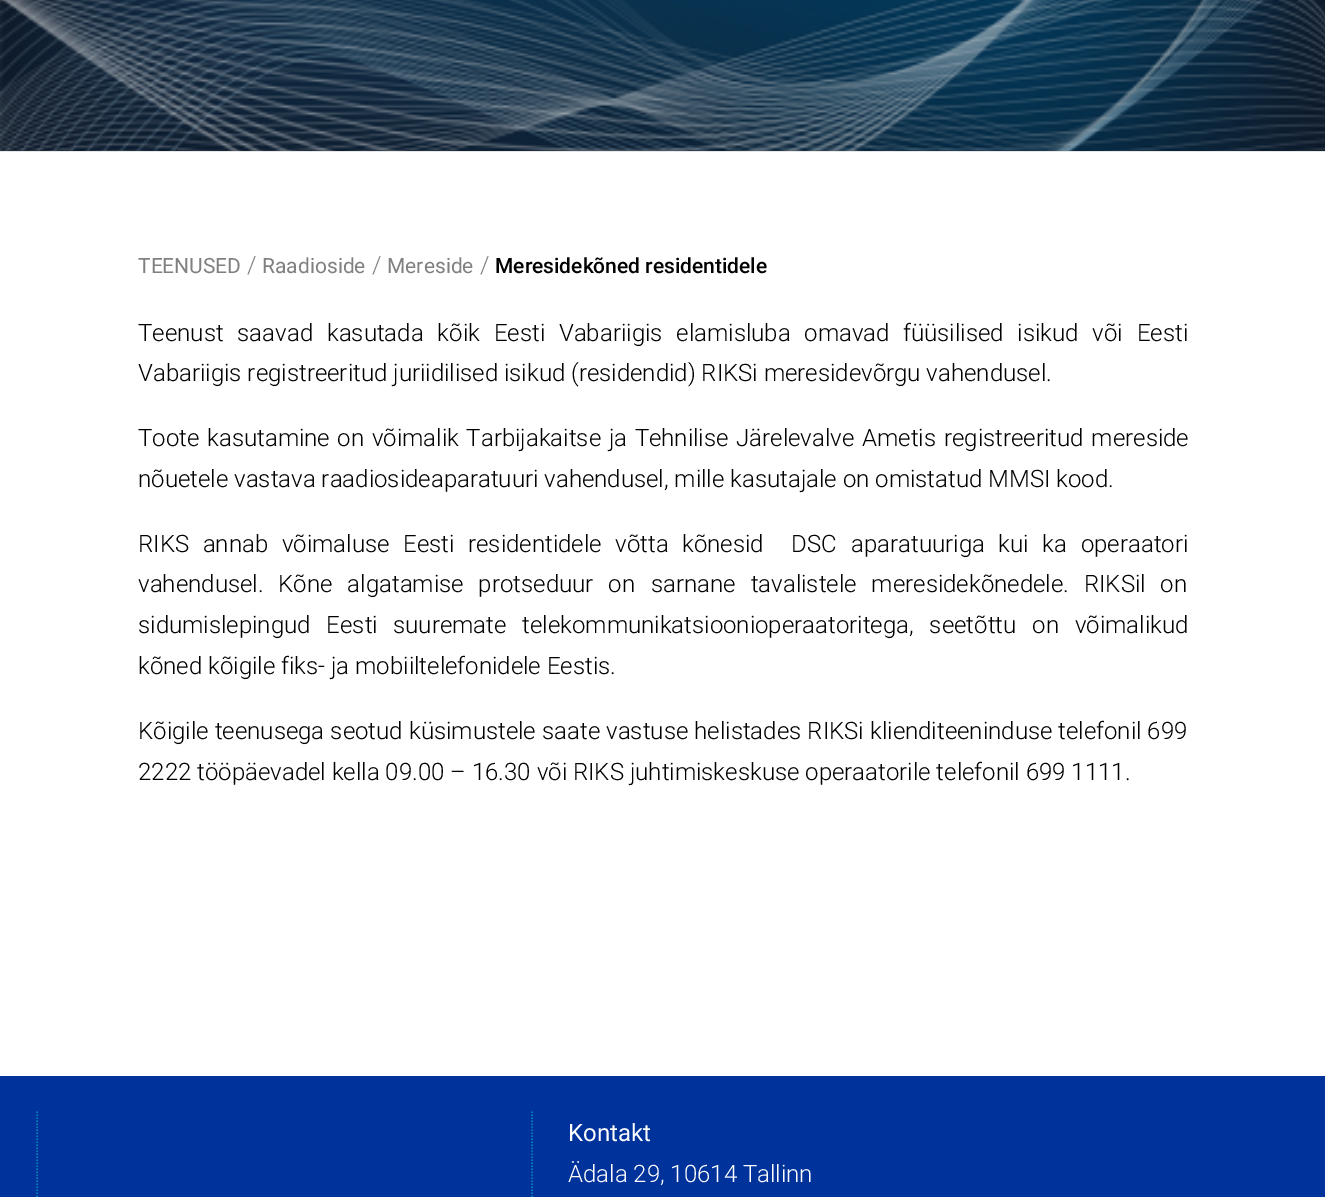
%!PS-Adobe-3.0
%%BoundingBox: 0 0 1325 1197
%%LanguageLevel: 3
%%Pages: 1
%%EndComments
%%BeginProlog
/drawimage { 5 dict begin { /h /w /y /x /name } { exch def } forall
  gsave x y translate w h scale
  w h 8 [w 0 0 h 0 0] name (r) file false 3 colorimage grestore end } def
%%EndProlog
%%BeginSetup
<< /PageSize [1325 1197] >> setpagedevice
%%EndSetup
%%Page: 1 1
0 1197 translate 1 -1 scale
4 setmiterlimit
1 setgray
0 0 1325 1197 rectfill
0.902 setgray
0 0 1325 152 rectfill
(images/1.raw) 0 0 1325 151 drawimage
0 0.196 0.612 setrgbcolor
0 1076 1325 121 rectfill
0 0.514 0.729 setrgbcolor
1.5 setlinewidth
[1.5 1.5] 0 setdash
newpath 37 1111.5 moveto 37 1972.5 lineto stroke
newpath 532 1111.5 moveto 532 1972.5 lineto stroke
/Roboto-Regular [21 0 0 -21 0 0] selectfont
0.502 setgray
138 273 moveto (TEENUSED) show
/Roboto-Light [24 0 0 -24 0 0] selectfont
247 273 moveto (/) show
/Roboto-Regular [21 0 0 -21 0 0] selectfont
262 273 moveto (Raadioside) show
/Roboto-Light [24 0 0 -24 0 0] selectfont
372 273 moveto (/) show
/Roboto-Regular [21 0 0 -21 0 0] selectfont
387 273 moveto (Mereside) show
/Roboto-Light [24 0 0 -24 0 0] selectfont
480 273 moveto (/) show
/Roboto-Medium [21 0 0 -21 0 0] selectfont
0 setgray
495 273 moveto (Meresidekõned residentidele) show
/Roboto-Light [24 0 0 -24 0 0] selectfont
138 341 moveto 8 0 32 (Teenust saavad kasutada kõik Eesti Vabariigis elamisluba omavad) widthshow
903 341 moveto 8 0 32 (füüsilised isikud või Eesti) widthshow
138 381 moveto (Vabariigis registreeritud juriidilised isikud \(residendid\) RIKSi meresidevõrgu vahendusel.) show
138 446 moveto 1.75 0 32 (Toote kasutamine on võimalik Tarbijakaitse ja Tehnilise Järelevalve) widthshow
862 446 moveto 2 0 32 (Ametis registreeritud mereside) widthshow
138 487 moveto (nõuetele vastava raadiosideaparatuuri vahendusel, mille kasutajale on omistatud MMSI kood.) show
138 552 moveto 7.75 0 32 (RIKS annab võimaluse Eesti residentidele võtta kõnesid  DSC) widthshow
851 552 moveto 7.75 0 32 (aparatuuriga kui ka operaatori) widthshow
138 592 moveto 9 0 32 (vahendusel. Kõne algatamise protseduur on) widthshow
651 592 moveto 9 0 32 (sarnane tavalistele meresidekõnedele. RIKSil on) widthshow
138 633 moveto 10 0 32 (sidumislepingud Eesti) widthshow
393 633 moveto 10 0 32 (suuremate telekommunikatsioonioperaatoritega, seetõttu on võimalikud) widthshow
138 674 moveto (kõned kõigile fiks- ja mobiiltelefonidele Eestis.) show
138 739 moveto 0.25 0 32 (Kõigile teenusega seotud küsimustele saate vastuse helistades RIKSi) widthshow
870 739 moveto (klienditeeninduse telefonil 699) show
138 780 moveto (2222 tööpäevadel kella 09.00 – 16.30 või RIKS juhtimiskeskuse operaatorile telefonil 699 1111.) show
/Roboto-Regular [24 0 0 -24 0 0] selectfont
1 setgray
568 1141 moveto (Kontakt) show
/Roboto-Light [24 0 0 -24 0 0] selectfont
568 1182 moveto (Ädala 29, 10614 Tallinn) show
showpage
%%EOF
